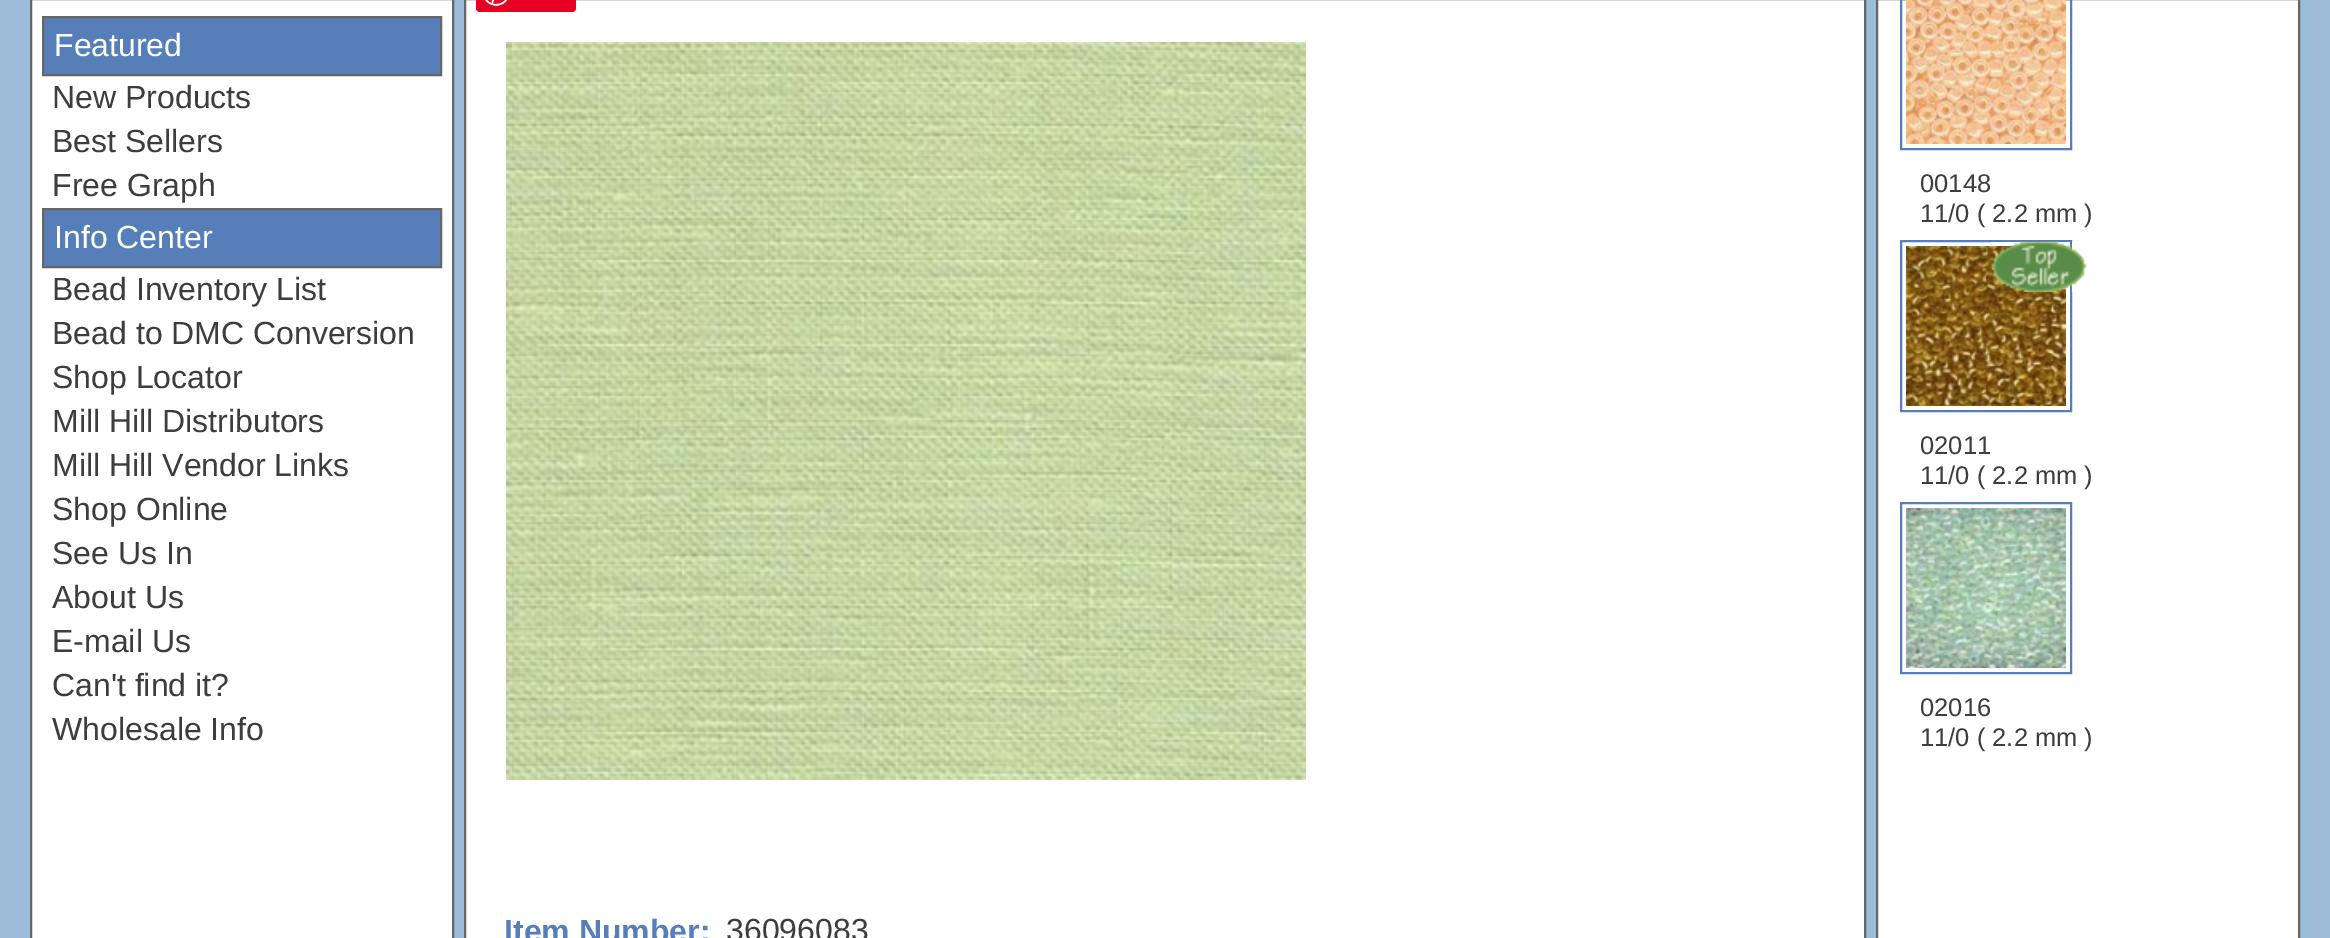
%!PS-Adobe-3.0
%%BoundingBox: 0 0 2330 938
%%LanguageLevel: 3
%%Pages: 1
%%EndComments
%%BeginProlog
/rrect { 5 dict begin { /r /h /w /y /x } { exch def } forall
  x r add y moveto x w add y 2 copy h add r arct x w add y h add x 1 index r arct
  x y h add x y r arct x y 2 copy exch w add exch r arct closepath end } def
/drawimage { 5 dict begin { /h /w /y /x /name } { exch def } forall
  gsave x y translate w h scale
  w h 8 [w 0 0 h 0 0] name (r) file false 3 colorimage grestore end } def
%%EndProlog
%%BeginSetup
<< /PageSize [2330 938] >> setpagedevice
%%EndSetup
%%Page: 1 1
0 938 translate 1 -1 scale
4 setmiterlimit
0.612 0.737 0.855 setrgbcolor
0 0 2330 938 rectfill
1 setgray
newpath 31 -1 moveto 453 -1 lineto 453 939 lineto 31 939 lineto closepath gsave fill grestore
0.4 setgray
2 setlinewidth
stroke
0.337 0.494 0.725 setrgbcolor
newpath 43 17 moveto 441 17 lineto 441 75 lineto 43 75 lineto closepath gsave fill grestore
0.4 setgray
stroke
0.337 0.494 0.725 setrgbcolor
newpath 43 209 moveto 441 209 lineto 441 267 lineto 43 267 lineto closepath gsave fill grestore
0.4 setgray
stroke
1 setgray
newpath 1877 -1 moveto 2299 -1 lineto 2299 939 lineto 1877 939 lineto closepath gsave fill grestore
0.4 setgray
stroke
0.337 0.494 0.725 setrgbcolor
1901 -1 170 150 rectstroke
(images/1.raw) 1906 0 160 144 drawimage
1901 241 170 170 rectstroke
(images/2.raw) 1906 246 160 160 drawimage
(images/3.raw) 1991 241 96 51 drawimage
1901 503 170 170 rectstroke
(images/4.raw) 1906 508 160 160 drawimage
1 setgray
newpath 465 -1 moveto 1865 -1 lineto 1865 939 lineto 465 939 lineto closepath gsave fill grestore
0.4 setgray
stroke
0.902 0 0.137 setrgbcolor
476 -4 100 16 4 rrect fill
(images/5.raw) 485 0 23 6 drawimage
(images/6.raw) 506 42 800 738 drawimage
/LiberationSans-Regular [32 0 0 -32 0 0] selectfont
1 setgray
54 56 moveto (Featured) show
0.239 setgray
52 108 moveto (New Products) show
52 152 moveto (Best Sellers) show
52 196 moveto (Free Graph) show
1 setgray
54 248 moveto (Info Center) show
0.239 setgray
52 300 moveto (Bead Inventory List) show
52 344 moveto (Bead to DMC Conversion) show
52 388 moveto (Shop Locator) show
52 432 moveto (Mill Hill Distributors) show
52 476 moveto (Mill Hill Vendor Links) show
52 520 moveto (Shop Online) show
52 564 moveto (See Us In) show
52 608 moveto (About Us) show
52 652 moveto (E-mail Us) show
52 696 moveto (Can't find it?) show
52 740 moveto (Wholesale Info) show
/LiberationSans-Regular [25.5 0 0 -25.5 0 0] selectfont
1920 192 moveto (00148) show
1920 222 moveto (11/0 \( 2.2 mm \)) show
1920 454 moveto (02011) show
1920 484 moveto (11/0 \( 2.2 mm \)) show
1920 716 moveto (02016) show
1920 746 moveto (11/0 \( 2.2 mm \)) show
/LiberationSans-Bold [32 0 0 -32 0 0] selectfont
0.337 0.494 0.725 setrgbcolor
504 942 moveto (Item Number:) show
/LiberationSans-Regular [32 0 0 -32 0 0] selectfont
0.239 setgray
726 941 moveto (36096083) show
showpage
%%EOF
